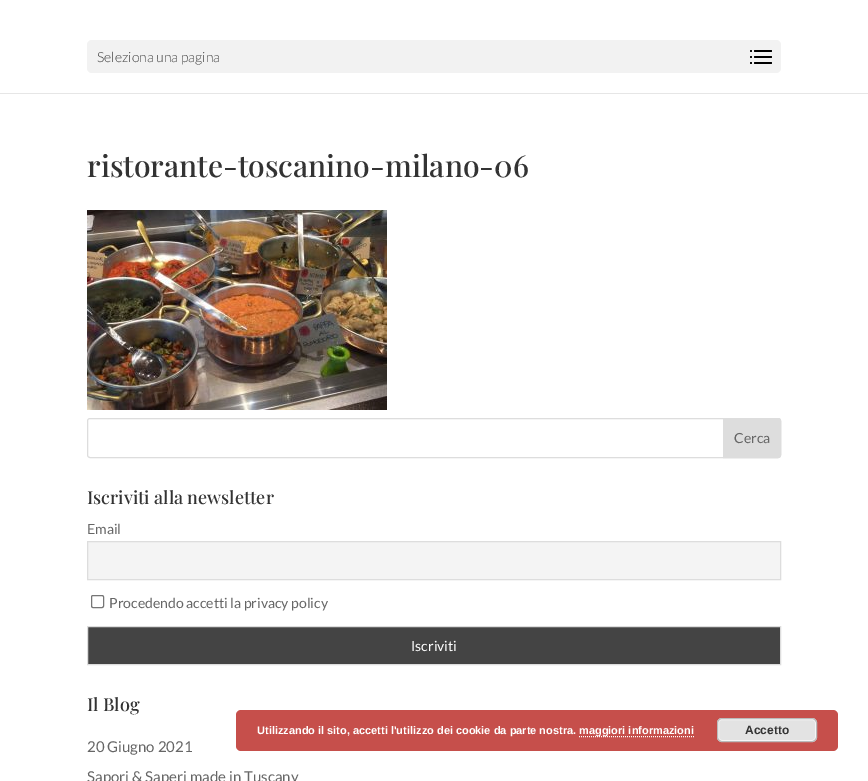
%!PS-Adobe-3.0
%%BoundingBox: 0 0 868 781
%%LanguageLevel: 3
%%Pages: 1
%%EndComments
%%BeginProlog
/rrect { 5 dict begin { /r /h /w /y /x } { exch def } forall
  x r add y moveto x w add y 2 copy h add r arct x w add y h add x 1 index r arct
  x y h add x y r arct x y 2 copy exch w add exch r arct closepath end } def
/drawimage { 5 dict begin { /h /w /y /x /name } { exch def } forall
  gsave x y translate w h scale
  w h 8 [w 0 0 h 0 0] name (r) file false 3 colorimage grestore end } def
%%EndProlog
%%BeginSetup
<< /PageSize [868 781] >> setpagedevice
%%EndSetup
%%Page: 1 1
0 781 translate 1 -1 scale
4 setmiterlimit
1 setgray
0 0 868 781 rectfill
0.902 setgray
0 93 868 1 rectfill
0.949 setgray
87 40 694 33 5 rrect fill
0 setgray
newpath 751 51 1 0 360 arc closepath fill
754 50 18 2 1 rrect fill
newpath 751 57 1 0 360 arc closepath fill
754 56 18 2 1 rrect fill
newpath 751 63 1 0 360 arc closepath fill
754 62 18 2 1 rrect fill
(images/1.raw) 87 210 300 200 drawimage
0.867 setgray
87.5 418.5 693 39 2.5 rrect stroke
newpath 723.5 418.5 moveto 778 418.5 lineto 779.5 418.5 780.5 419.5 780.5 421 curveto 780.5 455 lineto 780.5 456.5 779.5 457.5 778 457.5 curveto 723.5 457.5 lineto closepath gsave fill grestore
stroke
0.957 setgray
newpath 87.5 541.5 moveto 780.5 541.5 lineto 780.5 579.5 lineto 87.5 579.5 lineto closepath gsave fill grestore
0.867 setgray
stroke
0.463 setgray
91.5 595.5 12 12 1.5 rrect stroke
0.267 setgray
newpath 87.5 626.5 moveto 780.5 626.5 lineto 780.5 664.5 lineto 87.5 664.5 lineto closepath gsave fill grestore
0.867 setgray
stroke
0.776 0.31 0.294 setrgbcolor
236 710 602 41 5 rrect fill
1 setgray
[1 1] 0 setdash
newpath 579 736.5 moveto 694 736.5 lineto stroke
0.89 setgray
717 718 100 24 5 rrect fill
0.965 setgray
[] 0 setdash
718.5 719.5 97 21 3.5 rrect stroke
0.733 setgray
717.5 718.5 99 23 4.5 rrect stroke
/Lato-Light [14 0 0 -14 0 0] selectfont
0.267 setgray
97 62 moveto (Seleziona una pagina) show
/PlayfairDisplay-Medium [30 0 0 -30 0 0] selectfont
0.2 setgray
87 177 moveto (ristorante-toscanino-milano-06) show
/Lato-Regular [14 0 0 -14 0 0] selectfont
0.4 setgray
734 443 moveto (Cerca) show
/PlayfairDisplay-Medium [18 0 0 -18 0 0] selectfont
0.2 setgray
87 504 moveto (Iscriviti alla newsletter) show
/Lato-Regular [14 0 0 -14 0 0] selectfont
0.4 setgray
87 534 moveto (Email) show
109 608 moveto (Procedendo accetti la privacy policy) show
1 setgray
411 651 moveto (Iscriviti) show
/PlayfairDisplay-Medium [18 0 0 -18 0 0] selectfont
0.2 setgray
87 711 moveto (Il Blog) show
/Lato-Regular [15 0 0 -15 0 0] selectfont
0.4 setgray
87 752 moveto (20 Giugno 2021) show
87 782 moveto (Sapori & Saperi made in Tuscany) show
/LiberationSans-Bold [11 0 0 -11 0 0] selectfont
1 setgray
257 734 moveto (Utilizzando il sito, accetti l'utilizzo dei cookie da parte nostra.) show
579 734 moveto (maggiori informazioni) show
/LiberationSans-Bold [12 0 0 -12 0 0] selectfont
0.2 setgray
745 734 moveto (Accetto) show
showpage
%%EOF
